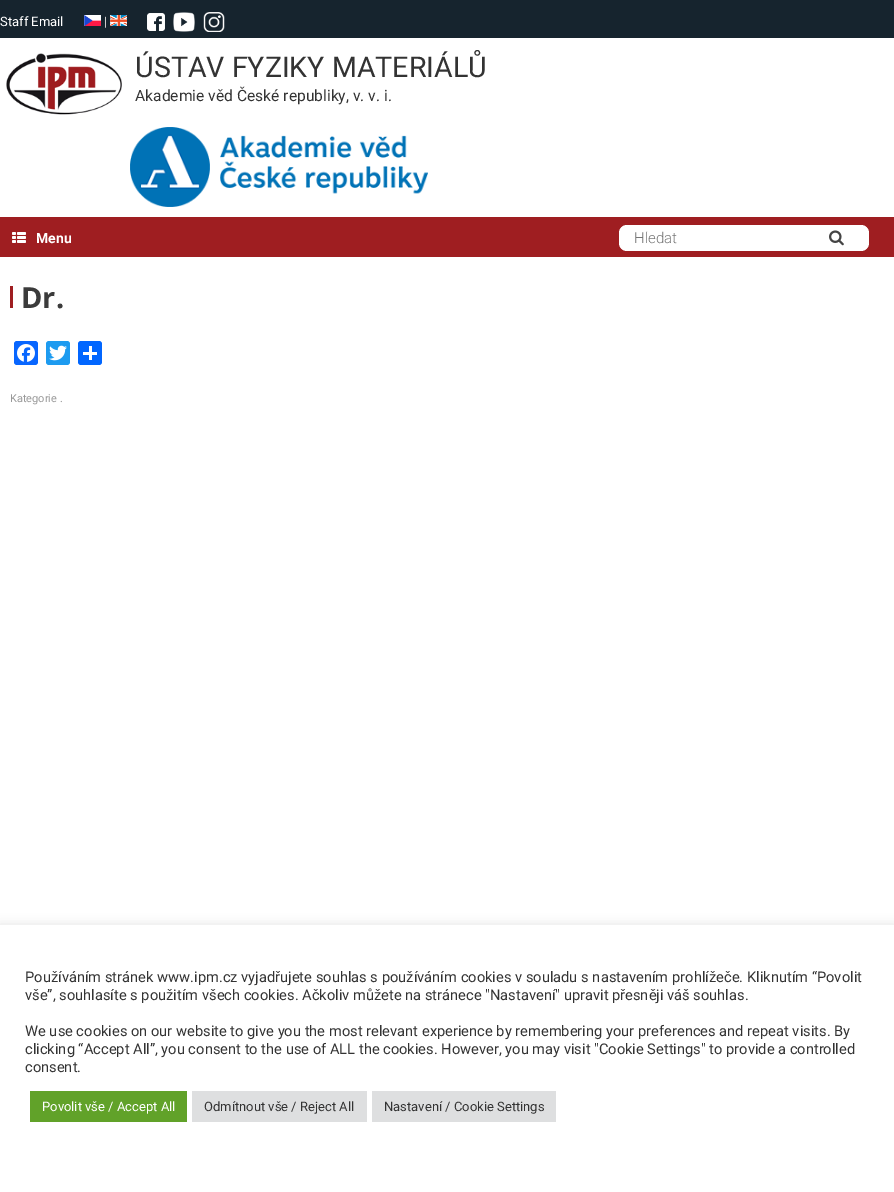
%!PS-Adobe-3.0
%%BoundingBox: 0 0 894 1192
%%LanguageLevel: 3
%%Pages: 1
%%EndComments
%%BeginProlog
/setalpha { dup .setfillconstantalpha .setstrokeconstantalpha } def
/rrect { 5 dict begin { /r /h /w /y /x } { exch def } forall
  x r add y moveto x w add y 2 copy h add r arct x w add y h add x 1 index r arct
  x y h add x y r arct x y 2 copy exch w add exch r arct closepath end } def
/softshadow { 12 dict begin { /a /b /q /h /w /y /x } { exch def } forall gsave /was 0 def
  9 -2 -9 { dup b mul 4 div /e exch def 1 sub .425 mul 2.718 exch exp 1 add a .99 .min exch div /now exch def
    1 1 now sub 1 was sub div sub setalpha /was now def
    w h .min e 2 mul add 0 gt { x e sub y e sub w e 2 mul add h e 2 mul add
      q e add b .6 mul add w h .min 2 div e add .min 0 .max rrect fill } if } for grestore end } def
/drawimage { 5 dict begin { /h /w /y /x /name } { exch def } forall
  gsave x y translate w h scale
  w h 8 [w 0 0 h 0 0] name (r) file false 3 colorimage grestore end } def
%%EndProlog
%%BeginSetup
<< /PageSize [894 1192] /PageUsesTransparency true >> setpagedevice
%%EndSetup
%%Page: 1 1
0 .pushpdf14devicefilter
0 1192 translate 1 -1 scale
4 setmiterlimit
1 setgray
0 0 894 1192 rectfill
0.086 0.141 0.18 setrgbcolor
0 0 894 38 rectfill
(images/1.raw) 84 15 17 11 drawimage
(images/2.raw) 110 15 17 11 drawimage
(images/3.raw) 147 13 18 18 drawimage
(images/4.raw) 173 12 22 20 drawimage
(images/5.raw) 203 12 22 20 drawimage
(images/6.raw) 6 53 116 62 drawimage
(images/7.raw) 130 127 298 80 drawimage
0.624 0.118 0.129 setrgbcolor
0 217 894 40 rectfill
(images/8.raw) 12 232 14 11 drawimage
1 setgray
619 225 250 26 8 rrect fill
(images/9.raw) 829 230 15 16 drawimage
0.624 0.118 0.129 setrgbcolor
10 286 3 22 rectfill
0.031 0.4 1 setrgbcolor
14 341 24 24 3 rrect fill
(images/10.raw) 17 344 18 18 drawimage
0.114 0.608 0.941 setrgbcolor
46 341 24 24 3 rrect fill
(images/11.raw) 49 345 18 16 drawimage
0.004 0.4 1 setrgbcolor
78 341 24 24 3 rrect fill
1 setgray
89 346 3 14 rectfill
83 352 14 3 rectfill
0.675 0.671 0.671 setrgbcolor
0 924 894 267 0 5 0.3 softshadow
1 setgray
0 925 894 267 rectfill
0.38 0.635 0.161 setrgbcolor
30 1091 157 31 rectfill
0.871 0.875 0.878 setrgbcolor
192 1091 175 31 rectfill
372 1091 184 31 rectfill
/Roboto-Regular [13 0 0 -13 0 0] selectfont
1 setgray
0 26 moveto (Staff Email) show
0.8 setgray
104 26 moveto (|) show
/Roboto-Regular [28.6 0 0 -28.6 0 0] selectfont
0.2 setgray
135 77 moveto (ÚSTAV FYZIKY MATERIÁLŮ) show
/Roboto-Regular [15.6 0 0 -15.6 0 0] selectfont
135 101 moveto (Akademie věd České republiky, v. v. i.) show
/Roboto-Bold [14 0 0 -14 0 0] selectfont
1 setgray
36 243 moveto (Menu) show
/Roboto-Light [15 0 0 -15 0 0] selectfont
0.459 setgray
634 243 moveto (Hledat) show
/OpenSans-Bold [29 0 0 -29 0 0] selectfont
0.231 setgray
21 308 moveto (Dr.) show
/Roboto-Regular [11 0 0 -11 0 0] selectfont
0.6 setgray
10 402 moveto (Kategorie .) show
/Roboto-Regular [14.67 0 0 -14.67 0 0] selectfont
0.2 setgray
25 982 moveto (Používáním stránek www.ipm.cz vyjadřujete souhlas s používáním cookies v souladu s nastavením prohlížeče. Kliknutím “Povolit) show
25 1000 moveto (vše”, souhlasíte s použitím všech cookies. Ačkoliv můžete na stránece "Nastavení" upravit přesněji váš souhlas.) show
25 1036 moveto (We use cookies on our website to give you the most relevant experience by remembering your preferences and repeat visits. By) show
25 1054 moveto (clicking “Accept All”, you consent to the use of ALL the cookies. However, you may visit "Cookie Settings" to provide a controlled) show
25 1072 moveto (consent.) show
/Roboto-Regular [13 0 0 -13 0 0] selectfont
1 setgray
42 1111 moveto (Povolit vše / Accept All) show
0.2 setgray
204 1111 moveto (Odmítnout vše / Reject All) show
384 1111 moveto (Nastavení / Cookie Settings) show
.poppdf14devicefilter showpage
%%EOF
